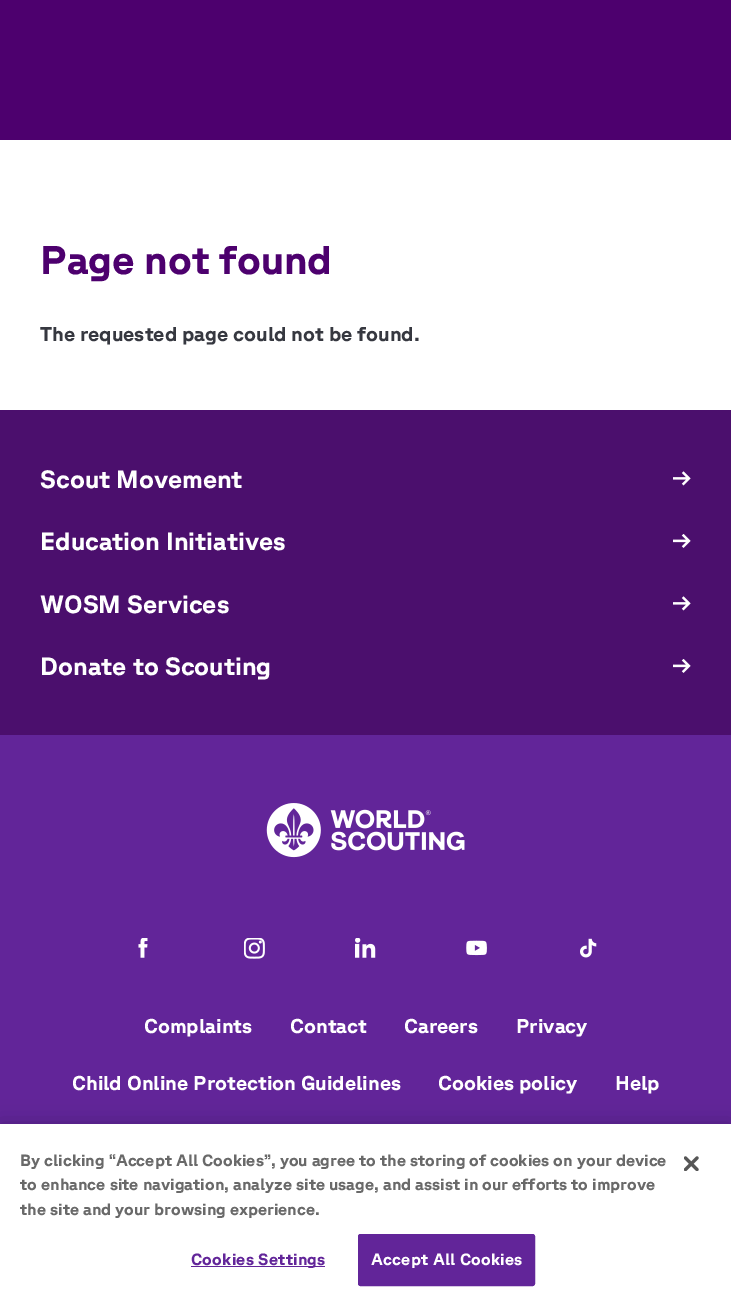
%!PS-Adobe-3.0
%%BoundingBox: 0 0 731 1306
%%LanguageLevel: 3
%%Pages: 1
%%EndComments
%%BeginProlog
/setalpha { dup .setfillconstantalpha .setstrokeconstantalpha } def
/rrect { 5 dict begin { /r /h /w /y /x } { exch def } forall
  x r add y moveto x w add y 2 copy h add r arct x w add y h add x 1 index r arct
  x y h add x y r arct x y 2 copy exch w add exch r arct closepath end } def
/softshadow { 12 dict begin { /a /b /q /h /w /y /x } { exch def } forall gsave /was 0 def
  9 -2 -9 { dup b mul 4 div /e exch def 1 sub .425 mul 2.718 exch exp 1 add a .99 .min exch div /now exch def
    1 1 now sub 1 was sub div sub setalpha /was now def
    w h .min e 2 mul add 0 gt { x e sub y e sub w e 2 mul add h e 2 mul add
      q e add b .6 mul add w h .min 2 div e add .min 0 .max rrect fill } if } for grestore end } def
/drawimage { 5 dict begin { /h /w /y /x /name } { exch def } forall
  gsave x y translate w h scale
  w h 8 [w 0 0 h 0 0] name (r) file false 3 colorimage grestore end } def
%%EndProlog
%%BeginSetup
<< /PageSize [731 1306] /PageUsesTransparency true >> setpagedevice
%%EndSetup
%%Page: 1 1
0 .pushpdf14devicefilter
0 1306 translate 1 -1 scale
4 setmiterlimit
1 setgray
0 0 731 1306 rectfill
0.302 0 0.431 setrgbcolor
0 0 731 140 rectfill
0.294 0.059 0.427 setrgbcolor
0 410 731 325 rectfill
(images/1.raw) 673 471 18 15 drawimage
(images/2.raw) 673 534 18 14 drawimage
(images/1.raw) 673 596 18 15 drawimage
(images/2.raw) 673 659 18 14 drawimage
0.384 0.145 0.6 setrgbcolor
0 735 731 389 rectfill
(images/3.raw) 266 803 199 55 drawimage
(images/4.raw) 138 938 10 20 drawimage
(images/5.raw) 244 938 21 21 drawimage
(images/6.raw) 355 938 21 20 drawimage
(images/7.raw) 466 940 21 16 drawimage
(images/8.raw) 580 938 17 20 drawimage
0 setgray
0 1124 731 182 0 11 0.2 softshadow
1 setgray
0 1124 731 182 rectfill
0.384 0.145 0.6 setrgbcolor
191 1266 134 1 rectfill
358.5 1234.5 176 51 2 rrect gsave fill grestore
stroke
(images/9.raw) 684 1156 15 15 drawimage
/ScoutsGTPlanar-Bold [40 0 0 -40 0 0] selectfont
0.302 0 0.431 setrgbcolor
40 274 moveto (Page not found) show
/ScoutsGTPlanar-Bold [20 0 0 -20 0 0] selectfont
0.212 0.22 0.251 setrgbcolor
40 341 moveto (The requested page could not be found.) show
/ScoutsGTPlanar-Bold [25 0 0 -25 0 0] selectfont
1 setgray
40 488 moveto (Scout Movement) show
40 550 moveto (Education Initiatives) show
40 613 moveto (WOSM Services) show
40 675 moveto (Donate to Scouting) show
/ScoutsGTPlanar-Bold [20 0 0 -20 0 0] selectfont
144 1033 moveto (Complaints) show
290 1033 moveto (Contact) show
404 1033 moveto (Careers) show
516 1033 moveto (Privacy) show
72 1090 moveto (Child Online Protection Guidelines) show
438 1090 moveto (Cookies policy) show
615 1090 moveto (Help) show
/ScoutsGTPlanar-Bold [16.25 0 0 -16.25 0 0] selectfont
0.412 setgray
20 1166 moveto (By clicking “Accept All Cookies”, you agree to the storing of cookies on your device) show
20 1190 moveto (to enhance site navigation, analyze site usage, and assist in our efforts to improve) show
20 1215 moveto (the site and your browsing experience.) show
0.384 0.145 0.6 setrgbcolor
191 1265 moveto 0.2 0 (Cookies Settings) ashow
1 setgray
371 1265 moveto 0.2 0 (Accept All Cookies) ashow
.poppdf14devicefilter showpage
%%EOF
